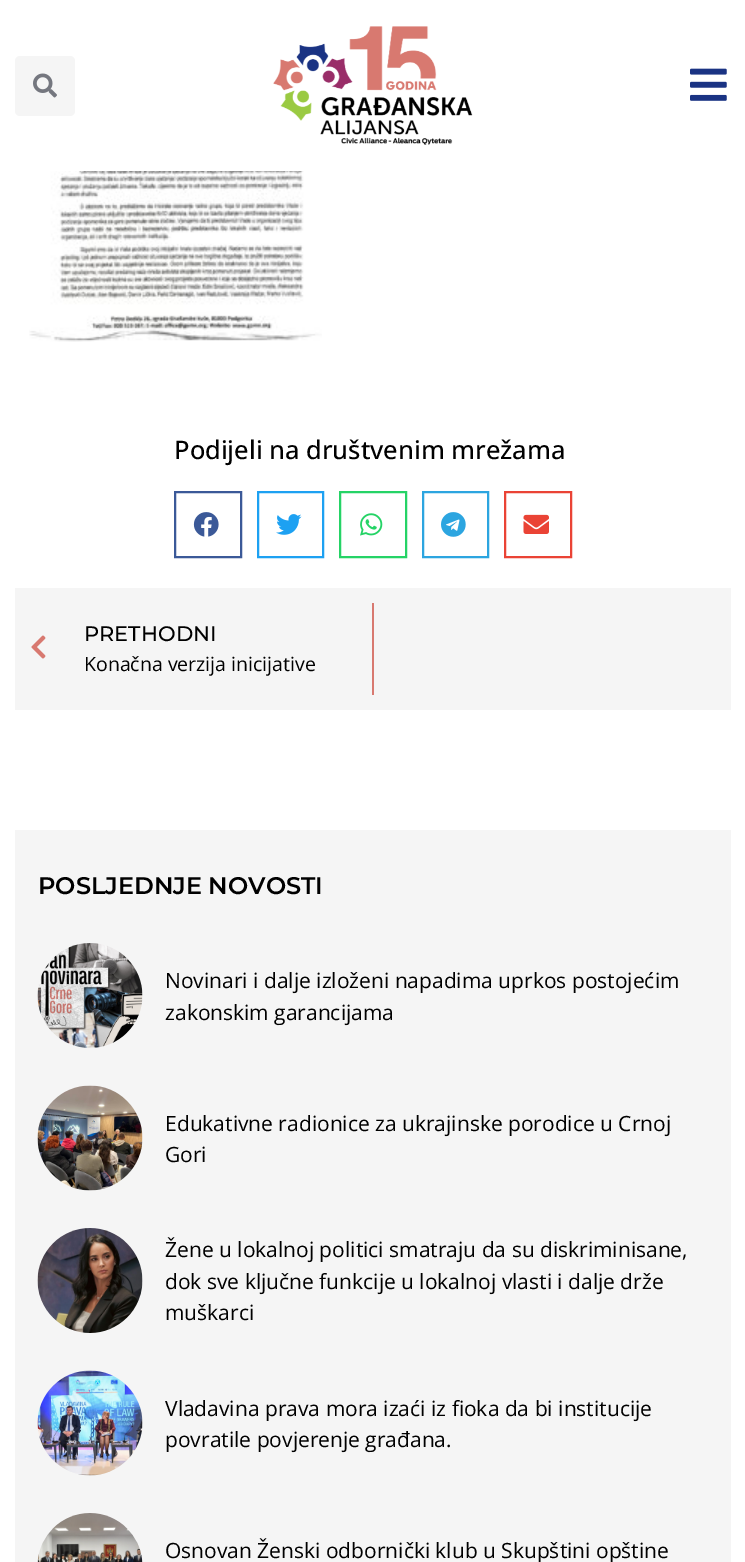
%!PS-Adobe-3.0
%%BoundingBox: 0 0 745 1562
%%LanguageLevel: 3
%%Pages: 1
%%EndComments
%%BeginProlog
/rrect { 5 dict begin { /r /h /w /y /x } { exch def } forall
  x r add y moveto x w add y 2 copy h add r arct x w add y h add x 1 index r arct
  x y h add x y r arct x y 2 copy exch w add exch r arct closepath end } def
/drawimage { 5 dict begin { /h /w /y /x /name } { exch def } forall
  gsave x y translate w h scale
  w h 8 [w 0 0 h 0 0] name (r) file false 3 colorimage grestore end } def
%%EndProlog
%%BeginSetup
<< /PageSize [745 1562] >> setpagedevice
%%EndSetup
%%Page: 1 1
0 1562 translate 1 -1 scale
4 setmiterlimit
1 setgray
0 0 745 1562 rectfill
0.961 setgray
15 56 60 60 5 rrect fill
(images/1.raw) 33 73 24 25 drawimage
(images/2.raw) 273 26 200 119 drawimage
(images/3.raw) 690 68 37 33 drawimage
(images/4.raw) 29 171 293 171 drawimage
0.231 0.349 0.596 setrgbcolor
2 setlinewidth
175 492 66 65 rectstroke
(images/5.raw) 193 512 26 25 drawimage
0.114 0.631 0.949 setrgbcolor
258 492 65 65 rectstroke
(images/6.raw) 276 514 26 21 drawimage
0.145 0.827 0.4 setrgbcolor
340 492 66 65 rectstroke
(images/7.raw) 360 513 23 23 drawimage
0.173 0.647 0.878 setrgbcolor
423 492 65 65 rectstroke
(images/8.raw) 441 512 25 25 drawimage
0.918 0.263 0.208 setrgbcolor
505 492 66 65 rectstroke
(images/9.raw) 523 514 26 20 drawimage
0.961 setgray
15 588 716 122 rectfill
(images/10.raw) 31 635 15 24 drawimage
0.847 0.475 0.439 setrgbcolor
372 603 2 92 rectfill
0.961 setgray
15 830 716 732 rectfill
(images/11.raw) 37 943 106 105 drawimage
(images/12.raw) 37 1085 106 106 drawimage
(images/13.raw) 37 1228 106 105 drawimage
(images/14.raw) 37 1370 106 106 drawimage
(images/15.raw) 37 1513 106 49 drawimage
/OpenSans-Medium [25.5 0 0 -25.5 0 0] selectfont
0 setgray
174 459 moveto (Podijeli na društvenim mrežama) show
/Montserrat-Medium [21 0 0 -21 0 0] selectfont
84 641 moveto (PRETHODNI) show
/OpenSans-Regular [19.5 0 0 -19.5 0 0] selectfont
84 671 moveto (Konačna verzija inicijative) show
/Montserrat-SemiBold [24 0 0 -24 0 0] selectfont
38 894 moveto (POSLJEDNJE NOVOSTI) show
/OpenSans-Regular [21 0 0 -21 0 0] selectfont
165 988 moveto (Novinari i dalje izloženi napadima uprkos postojećim) show
165 1020 moveto (zakonskim garancijama) show
165 1131 moveto (Edukativne radionice za ukrajinske porodice u Crnoj) show
165 1162 moveto (Gori) show
165 1257 moveto (Žene u lokalnoj politici smatraju da su diskriminisane,) show
165 1289 moveto (dok sve ključne funkcije u lokalnoj vlasti i dalje drže) show
165 1320 moveto (muškarci) show
165 1416 moveto (Vladavina prava mora izaći iz fioka da bi institucije) show
165 1447 moveto (povratile povjerenje građana.) show
165 1558 moveto (Osnovan Ženski odbornički klub u Skupštini opštine) show
showpage
%%EOF
